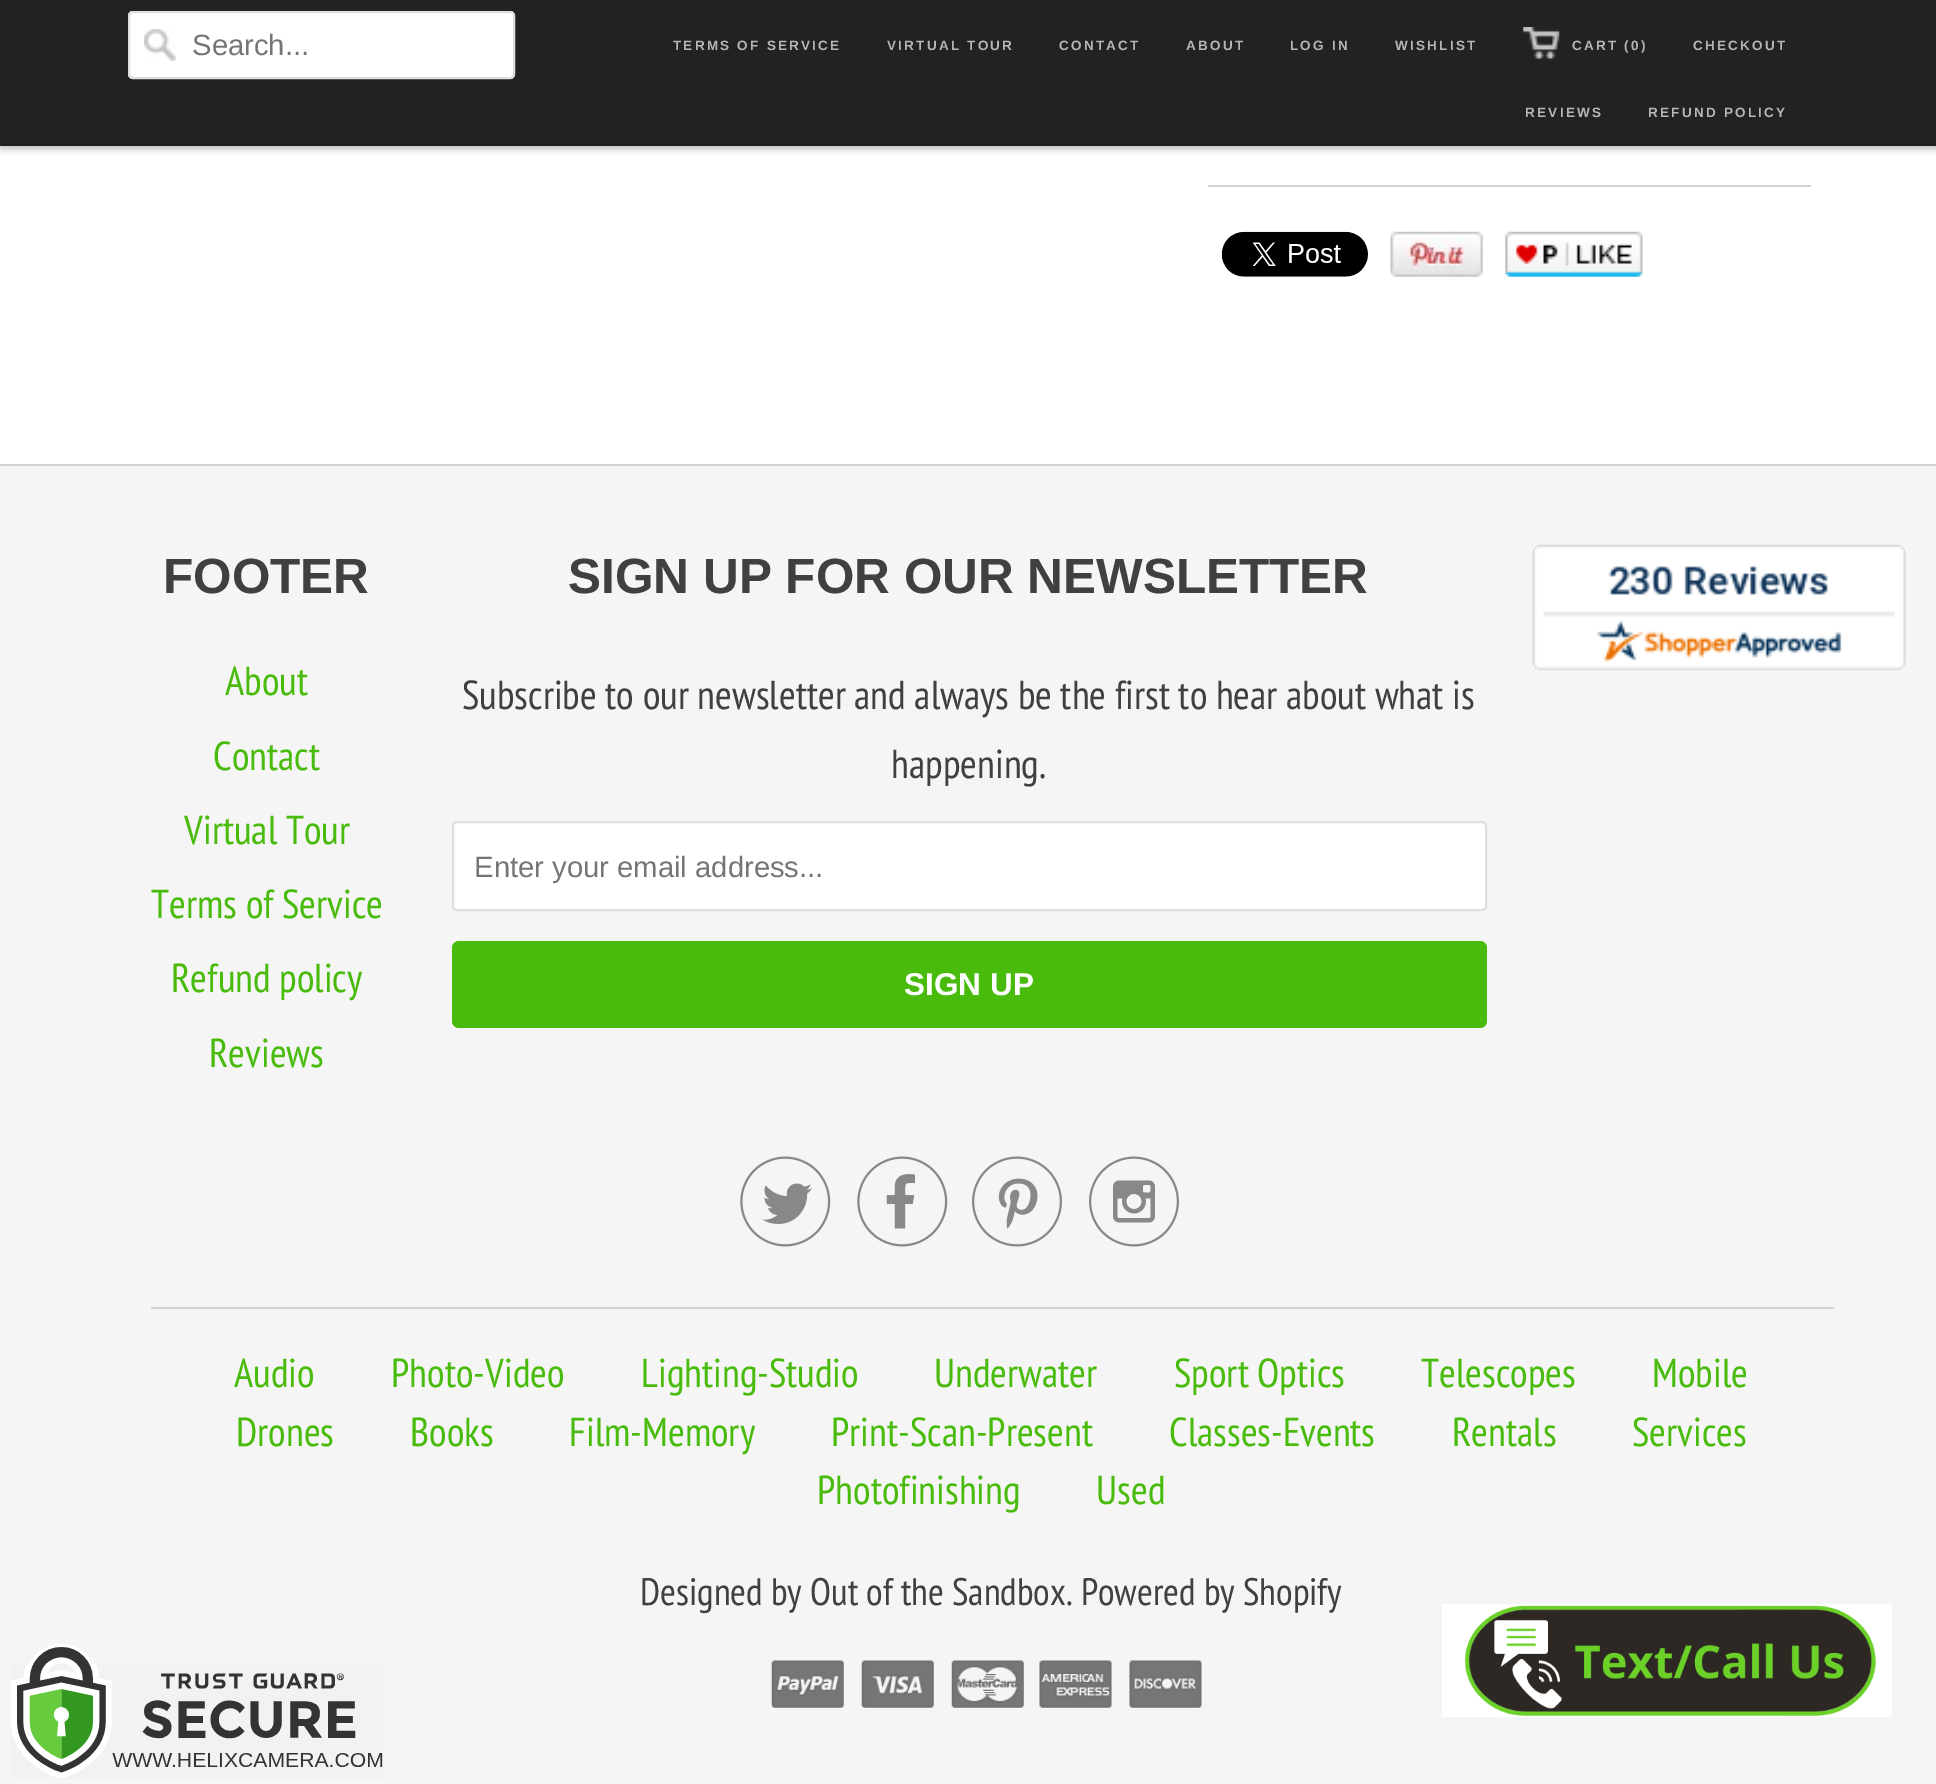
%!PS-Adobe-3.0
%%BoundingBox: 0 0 1936 1784
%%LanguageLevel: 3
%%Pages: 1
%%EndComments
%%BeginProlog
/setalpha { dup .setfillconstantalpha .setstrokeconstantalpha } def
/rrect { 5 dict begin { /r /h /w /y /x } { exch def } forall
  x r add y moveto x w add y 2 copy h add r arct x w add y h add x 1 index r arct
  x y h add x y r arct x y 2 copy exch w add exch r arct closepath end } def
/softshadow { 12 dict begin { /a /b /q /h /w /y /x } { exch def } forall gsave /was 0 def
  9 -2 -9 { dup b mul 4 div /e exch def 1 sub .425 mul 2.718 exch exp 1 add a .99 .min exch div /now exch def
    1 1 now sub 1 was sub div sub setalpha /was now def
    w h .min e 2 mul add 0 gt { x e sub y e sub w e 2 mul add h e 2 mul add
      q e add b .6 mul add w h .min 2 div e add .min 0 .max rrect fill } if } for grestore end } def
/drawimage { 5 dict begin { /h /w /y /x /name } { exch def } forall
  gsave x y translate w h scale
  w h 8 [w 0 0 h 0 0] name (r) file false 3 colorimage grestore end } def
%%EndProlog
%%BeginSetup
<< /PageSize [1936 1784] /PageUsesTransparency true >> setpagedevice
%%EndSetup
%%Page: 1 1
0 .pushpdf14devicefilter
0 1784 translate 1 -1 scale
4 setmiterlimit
1 setgray
0 0 1936 1784 rectfill
0 setgray
0 2 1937 147 0 3.5 0.25 softshadow
0.133 setgray
0 0 1936 144 rectfill
0.122 setgray
0 144 1936 2 rectfill
1 setgray
128 11 387 68 5 rrect fill
(images/1.raw) 144 29 32 32 drawimage
0.875 setgray
2 setlinewidth
129 12 385 66 4 rrect stroke
(images/2.raw) 1523 27 37 33 drawimage
0.827 setgray
1208 185 603 2 rectfill
(images/3.raw) 1221 231 147 46 drawimage
(images/4.raw) 1390 231 93 46 drawimage
(images/5.raw) 1505 231 138 46 drawimage
0.961 setgray
0 466 1936 1318 rectfill
0.827 setgray
0 464 1936 2 rectfill
1 setgray
453 822 1033 88 4 rrect gsave fill grestore
0.875 setgray
stroke
0.286 0.733 0.047 setrgbcolor
452 941 1035 87 7 rrect fill
(images/6.raw) 740 1156 91 91 drawimage
(images/7.raw) 857 1156 91 91 drawimage
(images/8.raw) 972 1156 90 91 drawimage
(images/9.raw) 1089 1156 90 91 drawimage
(images/10.raw) 1532 544 374 127 drawimage
0.827 setgray
151 1307 1683 2 rectfill
(images/11.raw) 771 1660 73 49 drawimage
(images/12.raw) 861 1660 73 49 drawimage
(images/13.raw) 951 1660 73 49 drawimage
(images/14.raw) 1039 1660 73 49 drawimage
(images/15.raw) 1129 1660 73 49 drawimage
(images/16.raw) 11 1644 372 135 drawimage
(images/17.raw) 1442 1604 450 113 drawimage
/LiberationSans-Regular [29.25 0 0 -29.25 0 0] selectfont
0.459 setgray
192 55 moveto (Search...) show
/LiberationSans-Bold [13.5 0 0 -13.5 0 0] selectfont
0.714 setgray
673 50 moveto 2.25 0 (TERMS OF SERVICE) ashow
887 50 moveto 2.25 0 (VIRTUAL TOUR) ashow
1059 50 moveto 2.25 0 (CONTACT) ashow
1186 50 moveto 2.25 0 (ABOUT) ashow
1290 50 moveto 2.25 0 (LOG IN) ashow
1395 50 moveto 2.25 0 (WISHLIST) ashow
1572 50 moveto 2.25 0 (CART \(0\)) ashow
1693 50 moveto 2.25 0 (CHECKOUT) ashow
1525 117 moveto 2.25 0 (REVIEWS) ashow
1648 117 moveto 2.25 0 (REFUND POLICY) ashow
/LiberationSans-Bold [49.5 0 0 -49.5 0 0] selectfont
0.251 setgray
163 593 moveto (FOOTER) show
/PTSansNarrow-Regular [40.5 0 0 -40.5 0 0] selectfont
0.286 0.733 0.047 setrgbcolor
225 695 moveto (About) show
213 770 moveto (Contact) show
184 844 moveto (Virtual Tour) show
151 918 moveto (Terms of Service) show
171 992 moveto (Refund policy) show
209 1067 moveto (Reviews) show
/LiberationSans-Bold [49.5 0 0 -49.5 0 0] selectfont
0.251 setgray
568 593 moveto (SIGN UP FOR OUR NEWSLETTER) show
/PTSansNarrow-Regular [40.5 0 0 -40.5 0 0] selectfont
462 709 moveto (Subscribe to our newsletter and always be the first to hear about what is) show
891 778 moveto (happening.) show
/LiberationSans-Regular [29.25 0 0 -29.25 0 0] selectfont
0.459 setgray
474 877 moveto (Enter your email address...) show
/LiberationSans-Bold [31.5 0 0 -31.5 0 0] selectfont
1 setgray
904 995 moveto (SIGN UP) show
/PTSansNarrow-Regular [40.5 0 0 -40.5 0 0] selectfont
0.286 0.733 0.047 setrgbcolor
234 1387 moveto (Audio) show
391 1387 moveto (Photo-Video) show
641 1387 moveto (Lighting-Studio) show
934 1387 moveto (Underwater) show
1174 1387 moveto (Sport Optics) show
1421 1387 moveto (Telescopes) show
1652 1387 moveto (Mobile) show
236 1446 moveto (Drones) show
410 1446 moveto (Books) show
569 1446 moveto (Film-Memory) show
831 1446 moveto (Print-Scan-Present) show
1169 1446 moveto (Classes-Events) show
1452 1446 moveto (Rentals) show
1632 1446 moveto (Services) show
817 1504 moveto (Photofinishing) show
1096 1504 moveto (Used) show
/PTSansNarrow-Regular [38.25 0 0 -38.25 0 0] selectfont
0.251 setgray
640 1605 moveto (Designed by Out of the Sandbox. Powered by Shopify) show
.poppdf14devicefilter showpage
%%EOF
